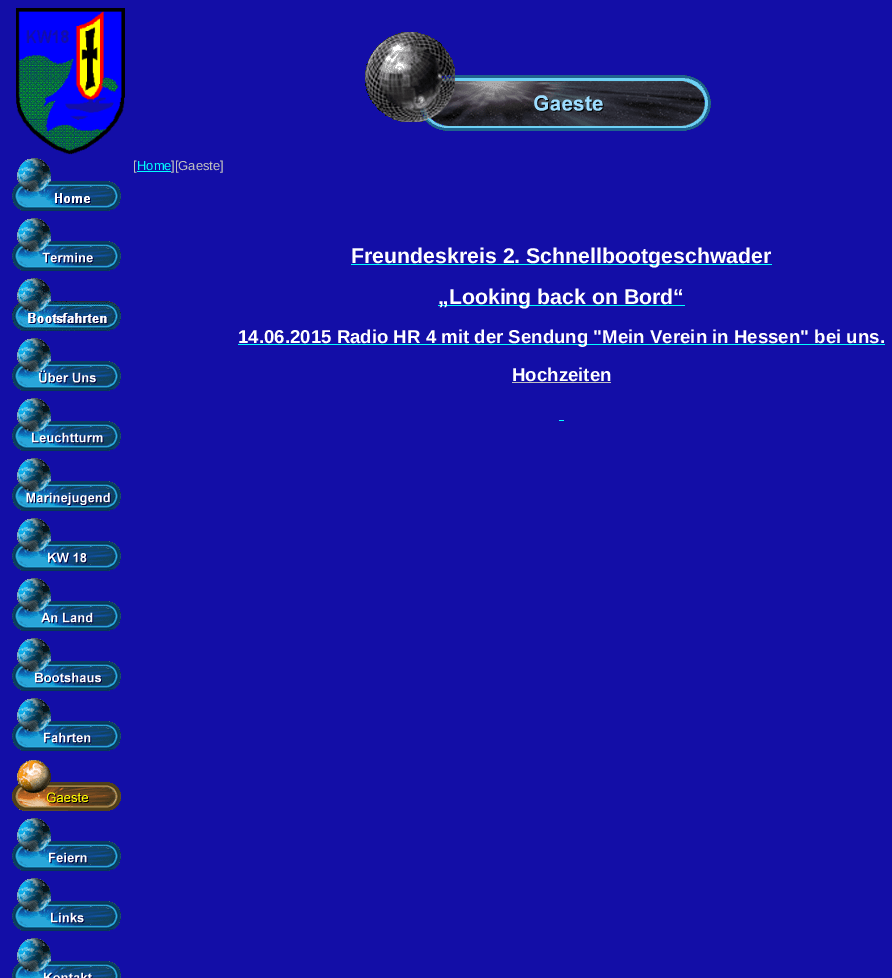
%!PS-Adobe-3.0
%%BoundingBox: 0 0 892 978
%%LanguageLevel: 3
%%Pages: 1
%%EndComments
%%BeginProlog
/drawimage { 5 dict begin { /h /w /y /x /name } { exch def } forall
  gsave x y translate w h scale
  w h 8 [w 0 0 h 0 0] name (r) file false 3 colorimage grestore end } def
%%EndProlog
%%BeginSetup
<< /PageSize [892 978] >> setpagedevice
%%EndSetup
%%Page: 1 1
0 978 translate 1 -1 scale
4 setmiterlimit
0.075 0.055 0.655 setrgbcolor
0 0 892 978 rectfill
(images/1.raw) 16 8 109 147 drawimage
(images/2.raw) 365 32 346 99 drawimage
(images/3.raw) 12 158 109 53 drawimage
(images/4.raw) 12 218 109 53 drawimage
(images/5.raw) 12 278 109 53 drawimage
(images/6.raw) 12 338 109 53 drawimage
(images/7.raw) 12 398 109 53 drawimage
(images/8.raw) 12 458 109 53 drawimage
(images/9.raw) 12 518 109 53 drawimage
(images/10.raw) 12 578 109 53 drawimage
(images/11.raw) 12 638 109 53 drawimage
(images/12.raw) 12 698 109 53 drawimage
(images/13.raw) 12 760 109 51 drawimage
(images/14.raw) 12 818 109 53 drawimage
(images/15.raw) 12 878 109 53 drawimage
(images/16.raw) 12 938 109 40 drawimage
0 1 1 setrgbcolor
137 171 34 1 rectfill
351 264 421 1 rectfill
438 305 247 1 rectfill
238 344 647 1 rectfill
0.753 setgray
512 382 99 1 rectfill
0 1 1 setrgbcolor
559 420 5 1 rectfill
/LiberationSans-Regular [13 0 0 -13 0 0] selectfont
0.753 setgray
133 170 moveto ([) show
0 1 1 setrgbcolor
137 170 moveto (Home) show
0.753 setgray
171 170 moveto (][Gaeste]) show
/LiberationSans-Bold [21.3 0 0 -21.3 0 0] selectfont
1 setgray
351 263 moveto (Freundeskreis 2. Schnellbootgeschwader) show
438 304 moveto („Looking back on Bord“) show
/LiberationSans-Bold [18.65 0 0 -18.65 0 0] selectfont
238 343 moveto (14.06.2015 Radio HR 4 mit der Sendung "Mein Verein in Hessen" bei uns.) show
512 381 moveto (Hochzeiten) show
showpage
%%EOF
